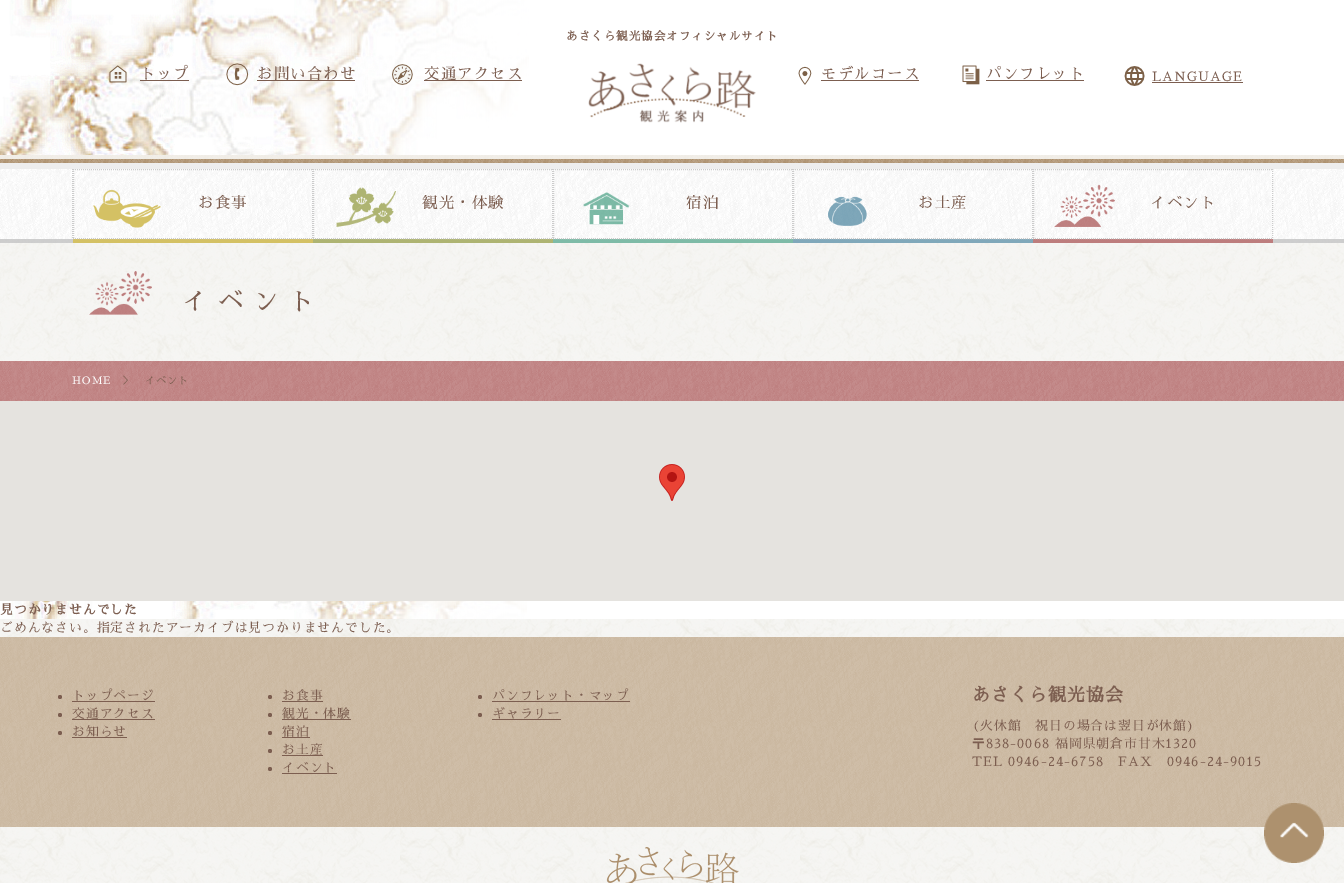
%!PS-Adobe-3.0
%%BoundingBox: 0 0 1344 883
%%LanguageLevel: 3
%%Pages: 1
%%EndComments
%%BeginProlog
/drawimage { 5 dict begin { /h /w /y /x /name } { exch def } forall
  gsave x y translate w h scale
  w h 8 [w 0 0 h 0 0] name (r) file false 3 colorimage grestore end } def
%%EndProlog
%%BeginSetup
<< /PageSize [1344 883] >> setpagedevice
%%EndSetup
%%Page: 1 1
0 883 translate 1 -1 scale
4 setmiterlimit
1 setgray
0 0 1344 883 rectfill
(images/1.raw) 0 243 1344 640 drawimage
(images/2.raw) 0 0 529 155 drawimage
(images/3.raw) 0 155 1344 8 drawimage
(images/4.raw) 588 63 168 60 drawimage
(images/5.raw) 109 65 18 18 drawimage
0.486 0.369 0.314 setrgbcolor
140 80 49 1 rectfill
(images/6.raw) 226 63 23 23 drawimage
257 80 98 1 rectfill
(images/7.raw) 392 64 21 21 drawimage
424 80 98 1 rectfill
(images/8.raw) 798 66 14 19 drawimage
821 80 98 1 rectfill
(images/9.raw) 962 65 18 20 drawimage
986 80 98 1 rectfill
(images/10.raw) 1124 66 21 20 drawimage
1152 82 91 1 rectfill
(images/11.raw) 0 169 1344 74 drawimage
0.933 setgray
0 163 1344 6 rectfill
0.8 setgray
[1 1] 0 setdash
newpath 72.5 169 moveto 72.5 243 lineto stroke
(images/12.raw) 93 189 68 39 drawimage
0.831 0.757 0.392 setrgbcolor
73 239 240 4 rectfill
0.8 setgray
newpath 73 169.5 moveto 313 169.5 lineto stroke
newpath 312.5 169 moveto 312.5 239 lineto stroke
newpath 73 238.5 moveto 313 238.5 lineto stroke
newpath 73.5 169 moveto 73.5 239 lineto stroke
(images/13.raw) 336 187 61 40 drawimage
0.682 0.706 0.447 setrgbcolor
313 239 240 4 rectfill
0.8 setgray
newpath 313 169.5 moveto 553 169.5 lineto stroke
newpath 552.5 169 moveto 552.5 239 lineto stroke
newpath 313 238.5 moveto 553 238.5 lineto stroke
newpath 313.5 169 moveto 313.5 239 lineto stroke
(images/14.raw) 583 192 47 33 drawimage
0.494 0.733 0.655 setrgbcolor
553 239 240 4 rectfill
0.8 setgray
newpath 553 169.5 moveto 793 169.5 lineto stroke
newpath 792.5 169 moveto 792.5 239 lineto stroke
newpath 553 238.5 moveto 793 238.5 lineto stroke
newpath 553.5 169 moveto 553.5 239 lineto stroke
(images/15.raw) 827 196 40 30 drawimage
0.502 0.659 0.729 setrgbcolor
793 239 240 4 rectfill
0.8 setgray
newpath 793 169.5 moveto 1033 169.5 lineto stroke
newpath 1032.5 169 moveto 1032.5 239 lineto stroke
newpath 793 238.5 moveto 1033 238.5 lineto stroke
newpath 793.5 169 moveto 793.5 239 lineto stroke
(images/16.raw) 1054 184 61 43 drawimage
0.741 0.49 0.49 setrgbcolor
1033 239 240 4 rectfill
0.8 setgray
newpath 1033 169.5 moveto 1273 169.5 lineto stroke
newpath 1272.5 169 moveto 1272.5 239 lineto stroke
newpath 1033 238.5 moveto 1273 238.5 lineto stroke
newpath 1033.5 169 moveto 1033.5 239 lineto stroke
(images/17.raw) 89 271 63 44 drawimage
(images/18.raw) 0 361 1344 40 drawimage
0.898 0.89 0.875 setrgbcolor
0 401 1344 200 rectfill
(images/19.raw) 659 464 26 37 drawimage
1 setgray
0 601 1344 18 rectfill
(images/20.raw) 11 601 516 18 drawimage
(images/21.raw) 0 637 1344 190 drawimage
0.486 0.369 0.314 setrgbcolor
newpath 60 697 2 0 360 arc closepath fill
72 701 83 1 rectfill
newpath 60 715 2 0 360 arc closepath fill
72 719 83 1 rectfill
newpath 60 733 2 0 360 arc closepath fill
72 737 55 1 rectfill
newpath 270 697 2 0 360 arc closepath fill
282 701 41 1 rectfill
newpath 270 715 2 0 360 arc closepath fill
282 719 69 1 rectfill
newpath 270 733 2 0 360 arc closepath fill
282 737 28 1 rectfill
newpath 270 751 2 0 360 arc closepath fill
282 755 41 1 rectfill
newpath 270 769 2 0 360 arc closepath fill
282 773 55 1 rectfill
newpath 480 697 2 0 360 arc closepath fill
492 701 138 1 rectfill
newpath 480 715 2 0 360 arc closepath fill
492 719 69 1 rectfill
(images/22.raw) 606 847 133 36 drawimage
(images/23.raw) 1264 803 60 60 drawimage
/SawarabiMincho-Bold [11.5 0 0 -11.5 0 0] selectfont
566 40 moveto 1 0 (あさくら観光協会オフィシャルサイト) ashow
/SawarabiMincho-Regular [15.5 0 0 -15.5 0 0] selectfont
140 79 moveto 1 0 (トップ) ashow
257 79 moveto 1 0 (お問い合わせ) ashow
424 79 moveto 1 0 (交通アクセス) ashow
821 79 moveto 1 0 (モデルコース) ashow
986 79 moveto 1 0 (パンフレット) ashow
/SawarabiMincho-Regular [12.8 0 0 -12.8 0 0] selectfont
1152 81 moveto 1 0 (LANGUAGE) ashow
/SawarabiMincho-Regular [15.5 0 0 -15.5 0 0] selectfont
198 208 moveto 1 0 (お食事) ashow
422 208 moveto 1 0 (観光・体験) ashow
686 208 moveto 1 0 (宿泊) ashow
918 208 moveto 1 0 (お土産) ashow
1150 208 moveto 1 0 (イベント) ashow
/SawarabiMincho-Regular [25.5 0 0 -25.5 0 0] selectfont
182 310 moveto 10 0 (イベント) ashow
/SawarabiMincho-Regular [10.25 0 0 -10.25 0 0] selectfont
1 setgray
72 384 moveto 1 0 (HOME) ashow
0.486 0.369 0.314 setrgbcolor
122 384 moveto 1 0 (＞　イベント) ashow
/SawarabiMincho-Bold [12.8 0 0 -12.8 0 0] selectfont
0 614 moveto 1 0 (見つかりませんでした) ashow
/SawarabiMincho-Regular [12.8 0 0 -12.8 0 0] selectfont
0 632 moveto 1 0 (ごめんなさい。指定されたアーカイブは見つかりませんでした。) ashow
72 700 moveto 1 0 (トップページ) ashow
72 718 moveto 1 0 (交通アクセス) ashow
72 736 moveto 1 0 (お知らせ) ashow
282 700 moveto 1 0 (お食事) ashow
282 718 moveto 1 0 (観光・体験) ashow
282 736 moveto 1 0 (宿泊) ashow
282 754 moveto 1 0 (お土産) ashow
282 772 moveto 1 0 (イベント) ashow
492 700 moveto 1 0 (パンフレット・マップ) ashow
492 718 moveto 1 0 (ギャラリー) ashow
/SawarabiMincho-Bold [18 0 0 -18 0 0] selectfont
972 701 moveto 1 0 (あさくら観光協会) ashow
/SawarabiMincho-Regular [12.8 0 0 -12.8 0 0] selectfont
972 730 moveto 1 0 (\(火休館　祝日の場合は翌日が休館\)) ashow
972 748 moveto 1 0 (〒838-0068 福岡県朝倉市甘木1320) ashow
972 766 moveto 1 0 (TEL 0946-24-6758　FAX　0946-24-9015) ashow
showpage
%%EOF
